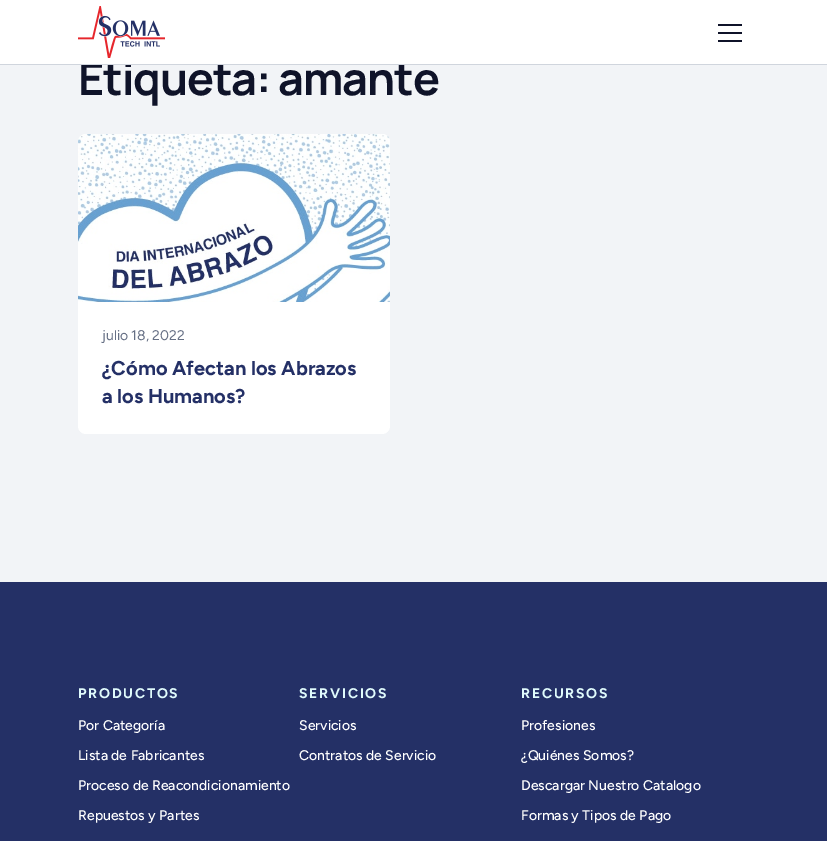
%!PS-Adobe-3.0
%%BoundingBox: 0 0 827 841
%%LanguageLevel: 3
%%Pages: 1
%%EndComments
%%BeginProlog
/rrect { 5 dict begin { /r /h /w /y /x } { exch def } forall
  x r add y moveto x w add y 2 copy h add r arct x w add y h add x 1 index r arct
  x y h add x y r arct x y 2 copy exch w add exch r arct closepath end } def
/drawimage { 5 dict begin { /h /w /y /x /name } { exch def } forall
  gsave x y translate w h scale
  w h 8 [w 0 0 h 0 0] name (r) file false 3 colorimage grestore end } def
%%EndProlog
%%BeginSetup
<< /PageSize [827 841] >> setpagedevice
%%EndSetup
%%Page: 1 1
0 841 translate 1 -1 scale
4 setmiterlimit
0.949 0.957 0.969 setrgbcolor
0 0 827 841 rectfill
1 setgray
78 134 312 300 8 rrect fill
(images/2.raw) 78 134 312 168 drawimage
0.141 0.188 0.4 setrgbcolor
0 582 827 259 rectfill
/Manrope-Bold [45 0 0 -45 0 0] selectfont
0.059 0.075 0.161 setrgbcolor
78 95 moveto -1.1 0 (Etiqueta: amante) ashow
1 setgray
0 0 827 64 rectfill
0.059 0.075 0.161 setrgbcolor
718 40 24 2 rectfill
718 32 24 2 rectfill
718 24 24 2 rectfill
(images/1.raw) 78 6 87 52 drawimage
0.816 0.835 0.867 setrgbcolor
0 64 827 1 rectfill
/Figtree-Regular [14 0 0 -14 0 0] selectfont
0.4 0.439 0.522 setrgbcolor
102 340 moveto (julio 18, 2022) show
/Figtree-Bold [20 0 0 -20 0 0] selectfont
0.141 0.188 0.4 setrgbcolor
102 375 moveto (¿Cómo Afectan los Abrazos) show
102 403 moveto (a los Humanos?) show
/Figtree-Bold [14 0 0 -14 0 0] selectfont
0.878 0.984 0.988 setrgbcolor
78 698 moveto 1.75 0 (PRODUCTOS) ashow
/Figtree-Medium [14 0 0 -14 0 0] selectfont
1 setgray
78 730 moveto (Por Categoría) show
78 760 moveto (Lista de Fabricantes) show
78 790 moveto (Proceso de Reacondicionamiento) show
78 820 moveto (Repuestos y Partes) show
/Figtree-Bold [14 0 0 -14 0 0] selectfont
0.878 0.984 0.988 setrgbcolor
299 698 moveto 1.75 0 (SERVICIOS) ashow
/Figtree-Medium [14 0 0 -14 0 0] selectfont
1 setgray
299 730 moveto (Servicios) show
299 760 moveto (Contratos de Servicio) show
/Figtree-Bold [14 0 0 -14 0 0] selectfont
0.878 0.984 0.988 setrgbcolor
521 698 moveto 1.75 0 (RECURSOS) ashow
/Figtree-Medium [14 0 0 -14 0 0] selectfont
1 setgray
521 730 moveto (Profesiones) show
521 760 moveto (¿Quiénes Somos?) show
521 790 moveto (Descargar Nuestro Catalogo) show
521 820 moveto (Formas y Tipos de Pago) show
showpage
%%EOF
